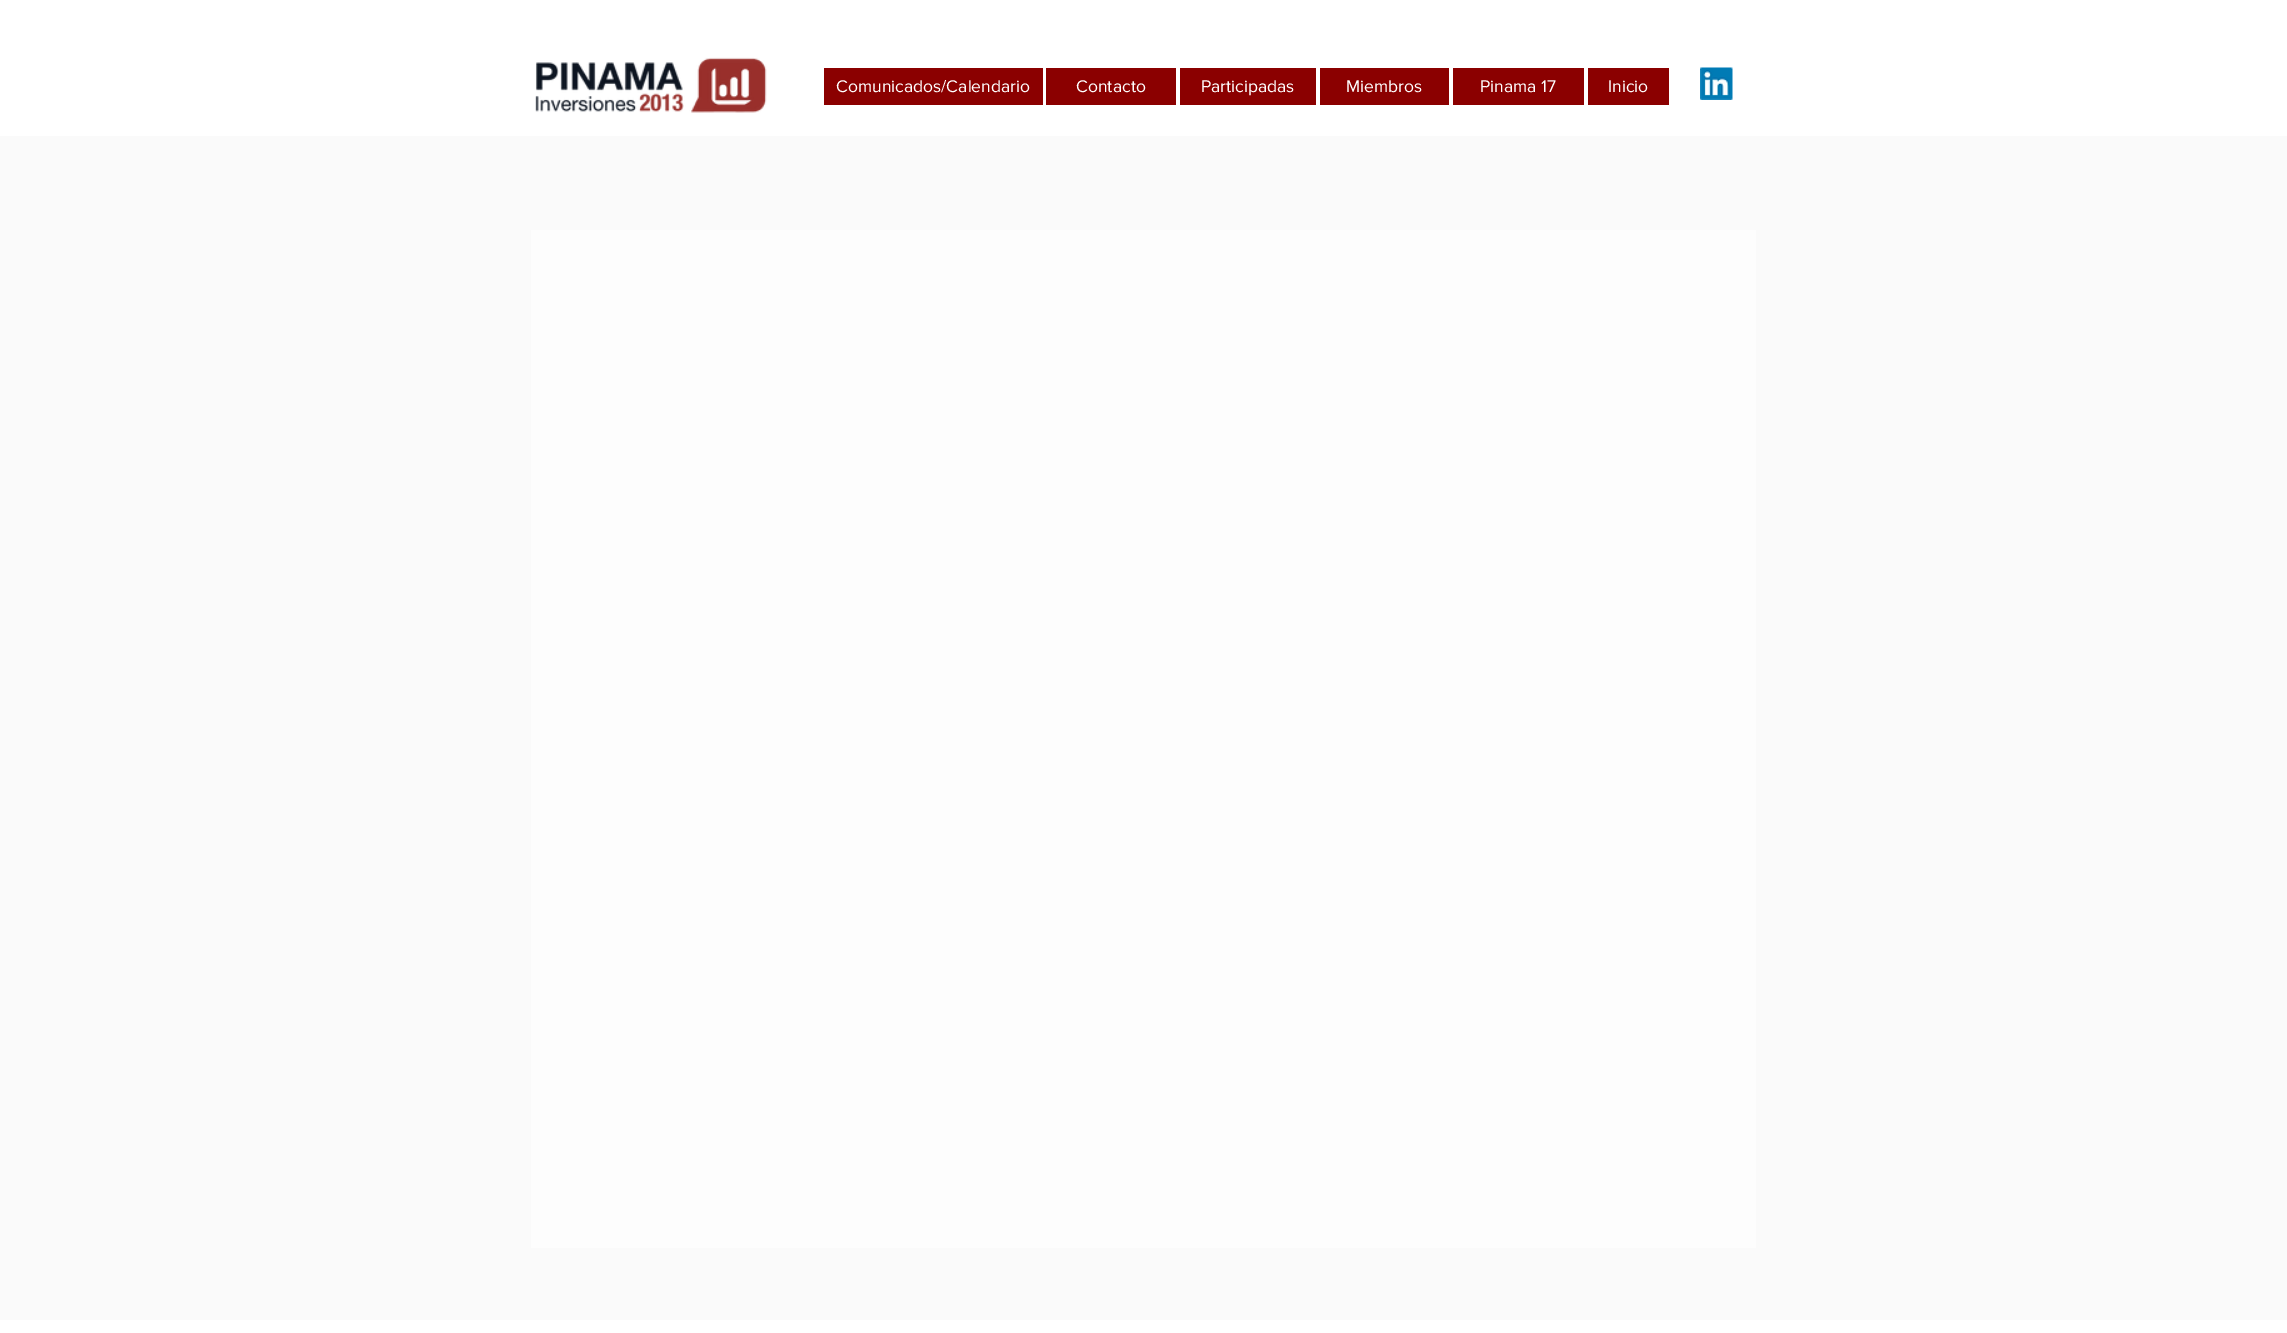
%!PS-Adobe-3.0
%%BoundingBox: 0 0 2287 1333
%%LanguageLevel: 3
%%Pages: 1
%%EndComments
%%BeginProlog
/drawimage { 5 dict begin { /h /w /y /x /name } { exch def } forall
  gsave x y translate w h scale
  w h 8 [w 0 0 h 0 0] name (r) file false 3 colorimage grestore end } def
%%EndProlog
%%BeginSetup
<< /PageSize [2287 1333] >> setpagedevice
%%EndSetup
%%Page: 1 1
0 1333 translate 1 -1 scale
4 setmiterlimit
1 setgray
0 0 2287 1333 rectfill
(images/1.raw) 535 57 232 56 drawimage
0.545 0 0 setrgbcolor
824 68 219 37 rectfill
1046 68 130 37 rectfill
1180 68 136 37 rectfill
1320 68 129 37 rectfill
1453 68 131 37 rectfill
1588 68 81 37 rectfill
0.98 setgray
0 136 2287 1184 rectfill
0.992 setgray
531 230 1225 1018 rectfill
(images/2.raw) 1700 67 33 33 drawimage
/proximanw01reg-Regular [17.5 0 0 -17.5 0 0] selectfont
1 setgray
836 92 moveto (Comunicados/Calendario) show
1076 92 moveto (Contacto) show
1201 92 moveto (Participadas) show
1346 92 moveto (Miembros) show
1480 92 moveto (Pinama 17) show
1608 92 moveto (Inicio) show
showpage
%%EOF
